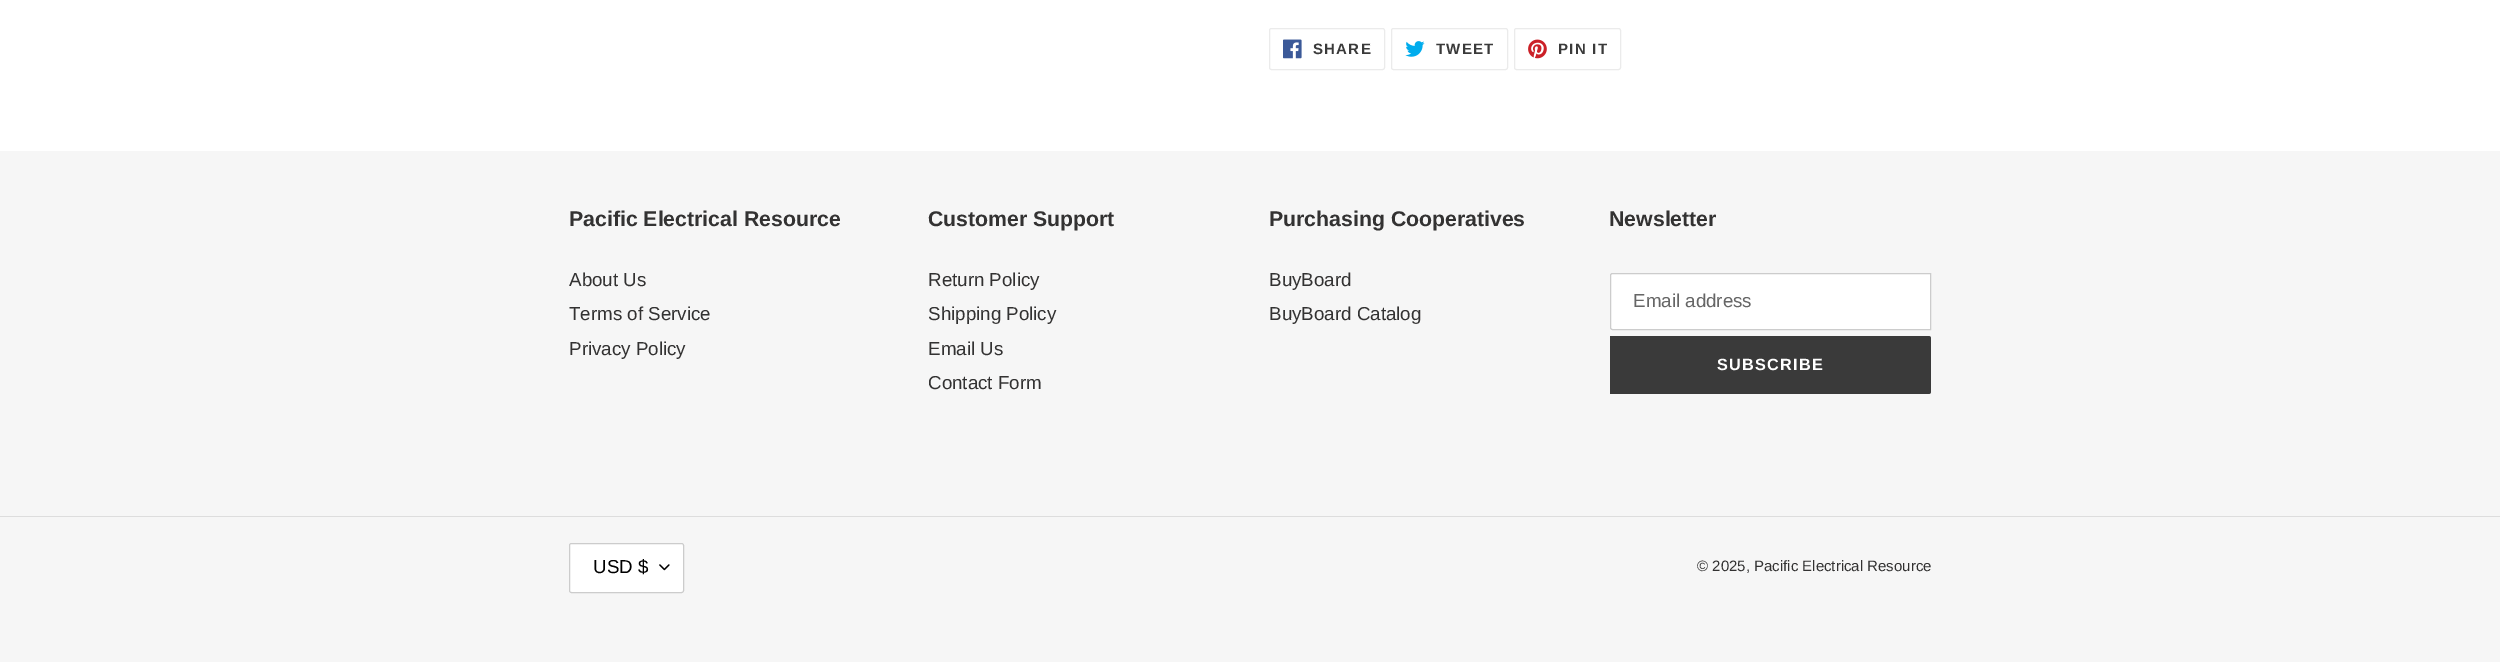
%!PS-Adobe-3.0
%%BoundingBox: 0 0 2500 662
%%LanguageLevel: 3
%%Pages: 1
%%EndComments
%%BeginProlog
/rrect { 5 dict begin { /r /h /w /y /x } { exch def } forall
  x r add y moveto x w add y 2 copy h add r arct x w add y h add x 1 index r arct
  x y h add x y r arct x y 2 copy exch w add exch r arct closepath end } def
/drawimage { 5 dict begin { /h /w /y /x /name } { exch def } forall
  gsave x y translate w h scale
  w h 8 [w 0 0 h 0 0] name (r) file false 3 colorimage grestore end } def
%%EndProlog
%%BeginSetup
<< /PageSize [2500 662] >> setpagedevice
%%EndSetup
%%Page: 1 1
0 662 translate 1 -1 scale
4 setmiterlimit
1 setgray
0 0 2500 662 rectfill
0.922 setgray
1269.5 28.5 115 41 2 rrect stroke
(images/1.raw) 1283 39 19 20 drawimage
1391.5 28.5 116 41 2 rrect stroke
(images/2.raw) 1405 41 20 16 drawimage
1514.5 28.5 106 41 2 rrect stroke
(images/3.raw) 1528 39 19 20 drawimage
0.965 setgray
0 151 2500 511 rectfill
1 setgray
newpath 1612.5 273.5 moveto 1930.5 273.5 lineto 1930.5 329.5 lineto 1612.5 329.5 lineto 1611.5 329.5 1610.5 328.5 1610.5 327.5 curveto 1610.5 275.5 lineto 1610.5 274.5 1611.5 273.5 1612.5 273.5 curveto closepath gsave fill grestore
0.8 setgray
stroke
0.227 setgray
newpath 1610 336 moveto 1928.5 336 lineto 1930 336 1931 337 1931 338.5 curveto 1931 391.5 lineto 1931 393 1930 394 1928.5 394 curveto 1610 394 lineto closepath fill
0.867 setgray
0 516 2500 1 rectfill
1 setgray
569 543 115 50 2.5 rrect fill
(images/4.raw) 659 564 11 7 drawimage
0.8 setgray
569.5 543.5 114 49 2 rrect stroke
/LiberationSans-Bold [15 0 0 -15 0 0] selectfont
0.227 setgray
1313 54 moveto 1.25 0 (SHARE) ashow
1436 54 moveto 1.25 0 (TWEET) ashow
1558 54 moveto 1.25 0 (PIN IT) ashow
/LiberationSans-Bold [21.25 0 0 -21.25 0 0] selectfont
0.2 0.196 0.196 setrgbcolor
569 226 moveto (Pacific Electrical Resource) show
/LiberationSans-Regular [18.75 0 0 -18.75 0 0] selectfont
569 286 moveto (About Us) show
569 320 moveto (Terms of Service) show
569 355 moveto (Privacy Policy) show
/LiberationSans-Bold [21.25 0 0 -21.25 0 0] selectfont
928 226 moveto (Customer Support) show
/LiberationSans-Regular [18.75 0 0 -18.75 0 0] selectfont
928 286 moveto (Return Policy) show
928 320 moveto (Shipping Policy) show
928 355 moveto (Email Us) show
928 389 moveto (Contact Form) show
/LiberationSans-Bold [21.25 0 0 -21.25 0 0] selectfont
1269 226 moveto (Purchasing Cooperatives) show
/LiberationSans-Regular [18.75 0 0 -18.75 0 0] selectfont
1269 286 moveto (BuyBoard) show
1269 320 moveto (BuyBoard Catalog) show
/LiberationSans-Bold [21.25 0 0 -21.25 0 0] selectfont
1609 226 moveto (Newsletter) show
/LiberationSans-Regular [18.75 0 0 -18.75 0 0] selectfont
0.4 setgray
1633 307 moveto (Email address) show
/LiberationSans-Bold [16.25 0 0 -16.25 0 0] selectfont
1 setgray
1717 370 moveto 1.25 0 (SUBSCRIBE) ashow
/LiberationSans-Regular [18.75 0 0 -18.75 0 0] selectfont
0 setgray
593 573 moveto (USD $) show
/LiberationSans-Regular [15 0 0 -15 0 0] selectfont
0.2 0.196 0.196 setrgbcolor
1697 571 moveto (© 2025, Pacific Electrical Resource) show
showpage
%%EOF
